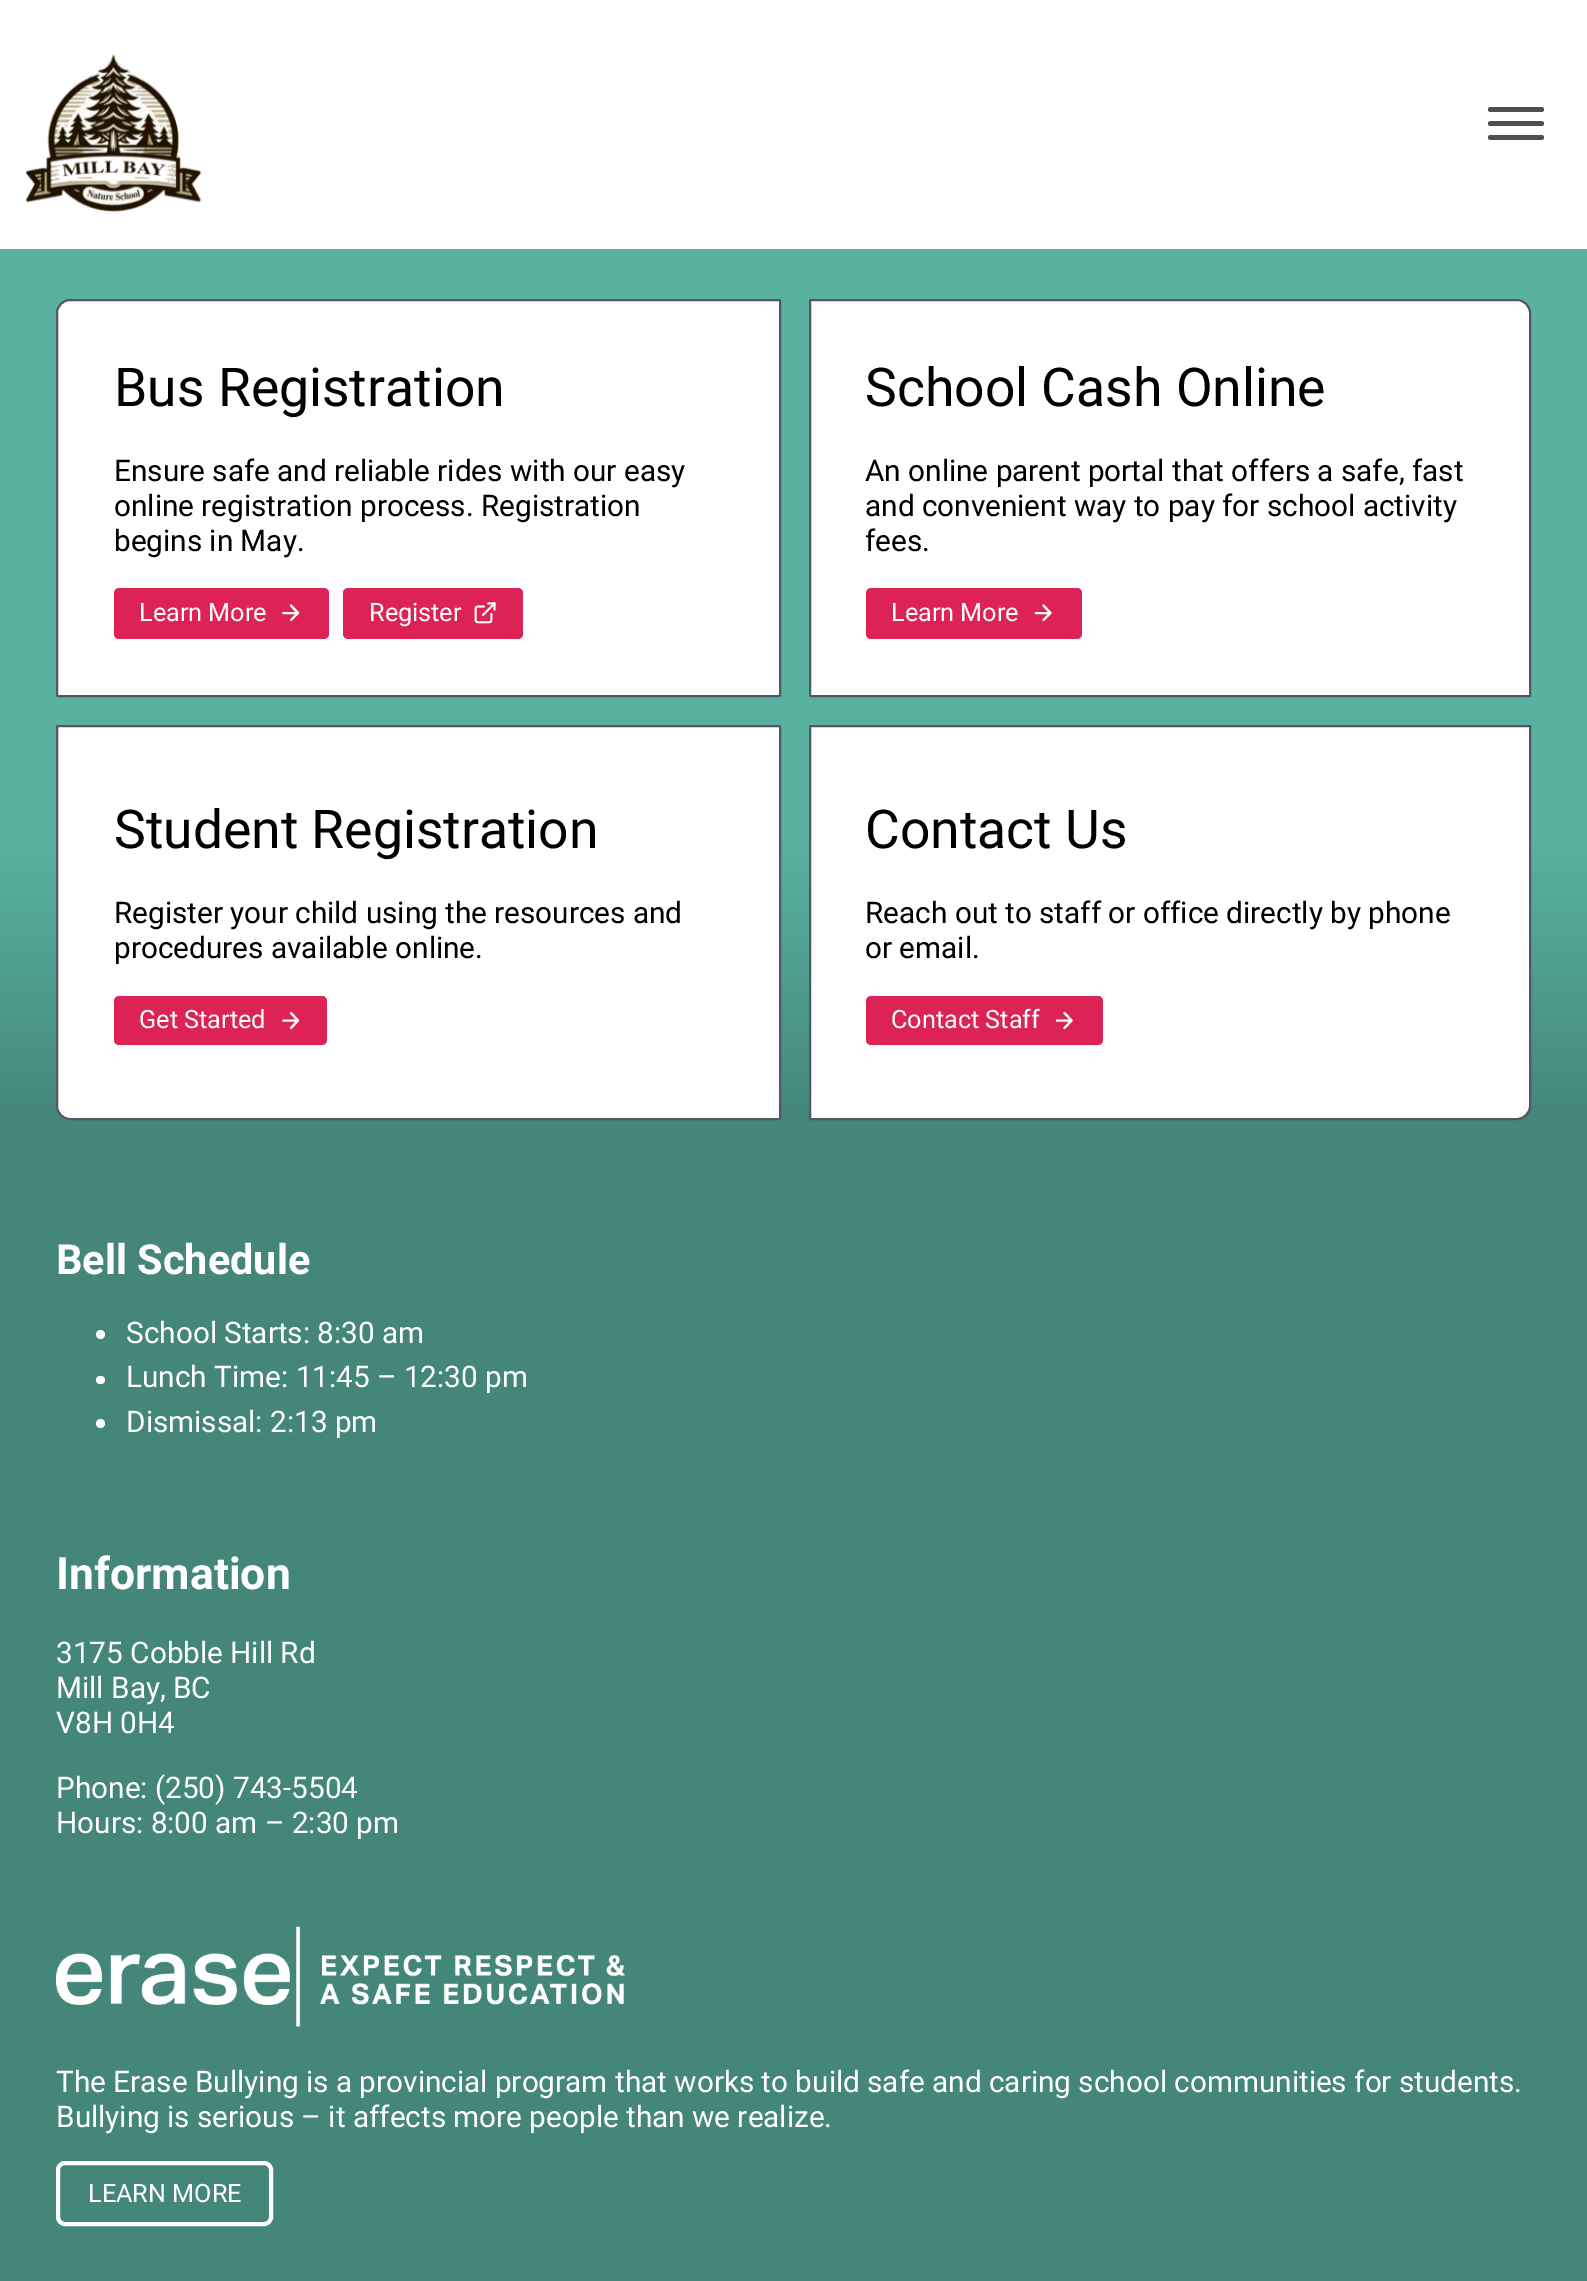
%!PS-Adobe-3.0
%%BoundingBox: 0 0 1587 2281
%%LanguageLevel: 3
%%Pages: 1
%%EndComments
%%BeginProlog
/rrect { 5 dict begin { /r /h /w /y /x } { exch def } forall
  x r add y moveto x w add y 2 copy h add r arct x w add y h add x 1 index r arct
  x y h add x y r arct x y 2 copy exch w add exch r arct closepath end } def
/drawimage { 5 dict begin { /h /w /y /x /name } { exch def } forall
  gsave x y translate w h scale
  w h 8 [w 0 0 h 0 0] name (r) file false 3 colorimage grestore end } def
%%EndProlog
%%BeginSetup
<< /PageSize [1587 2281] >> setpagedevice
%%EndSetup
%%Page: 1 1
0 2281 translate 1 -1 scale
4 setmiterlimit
1 setgray
0 0 1587 2281 rectfill
(images/1.raw) 26 54 176 158 drawimage
0.329 0.306 0.306 setrgbcolor
1488 107 56 5 2.5 rrect fill
1488 121 56 5 2.5 rrect fill
1488 135 56 5 2.5 rrect fill
gsave newpath 0 249 moveto 1587 249 lineto 1587 1176 lineto 0 1176 lineto closepath clip newpath
<< /ShadingType 2 /ColorSpace /DeviceRGB /Coords [794 1176 794 243] /Extend [true true] /Function << /FunctionType 3 /Domain [0 1] /Functions [<< /FunctionType 2 /Domain [0 1] /C0 [0.267 0.529 0.478] /C1 [0.267 0.529 0.478] /N 1 >> << /FunctionType 2 /Domain [0 1] /C0 [0.267 0.529 0.478] /C1 [0.349 0.698 0.627] /N 1 >> << /FunctionType 2 /Domain [0 1] /C0 [0.349 0.698 0.627] /C1 [0.349 0.698 0.627] /N 1 >>] /Bounds [0.06 0.36] /Encode [0 1 0 1 0 1] >> >> shfill grestore
1 setgray
newpath 70 300 moveto 779 300 lineto 779.5 300 780 300.5 780 301 curveto 780 695 lineto 780 695.5 779.5 696 779 696 curveto 58 696 lineto 57.5 696 57 695.5 57 695 curveto 57 313 lineto 57 306 63 300 70 300 curveto closepath gsave fill grestore
0.325 0.337 0.396 setrgbcolor
2 setlinewidth
stroke
0.867 0.133 0.337 setrgbcolor
114 588 215 51 5 rrect fill
1 setgray
2.1 setlinewidth
1 setlinecap
1 setlinejoin
newpath 283.5 613 moveto 298 613 lineto 291 605.5 moveto 298 613 lineto 291 620 lineto stroke
0.867 0.133 0.337 setrgbcolor
343 588 180 51 5 rrect fill
(images/2.raw) 474 602 22 22 drawimage
1 setgray
newpath 811 300 moveto 1517 300 lineto 1524 300 1530 306 1530 313 curveto 1530 696 lineto 811 696 lineto 810.5 696 810 695.5 810 695 curveto 810 301 lineto 810 300.5 810.5 300 811 300 curveto closepath gsave fill grestore
0.325 0.337 0.396 setrgbcolor
2 setlinewidth
0 setlinecap
0 setlinejoin
stroke
0.867 0.133 0.337 setrgbcolor
866 588 216 51 5 rrect fill
1 setgray
2.1 setlinewidth
1 setlinecap
1 setlinejoin
newpath 1036 613 moveto 1050.5 613 lineto 1043.5 605.5 moveto 1050.5 613 lineto 1043.5 620 lineto stroke
newpath 58 726 moveto 779 726 lineto 779.5 726 780 726.5 780 727 curveto 780 1118 lineto 780 1118.5 779.5 1119 779 1119 curveto 70 1119 lineto 63 1119 57 1113 57 1106 curveto 57 727 lineto 57 726.5 57.5 726 58 726 curveto closepath gsave fill grestore
0.325 0.337 0.396 setrgbcolor
2 setlinewidth
0 setlinecap
0 setlinejoin
stroke
0.867 0.133 0.337 setrgbcolor
114 996 213 49 5 rrect fill
1 setgray
2.1 setlinewidth
1 setlinecap
1 setlinejoin
newpath 283.5 1020.5 moveto 298 1020.5 lineto 291 1013 moveto 298 1020.5 lineto 291 1028 lineto stroke
newpath 810 726 moveto 1530 726 lineto 1530 1106 lineto 1530 1113 1524 1119 1517 1119 curveto 810 1119 lineto closepath gsave fill grestore
0.325 0.337 0.396 setrgbcolor
2 setlinewidth
0 setlinecap
0 setlinejoin
stroke
0.867 0.133 0.337 setrgbcolor
866 996 237 49 5 rrect fill
1 setgray
2.1 setlinewidth
1 setlinecap
1 setlinejoin
newpath 1057 1020.5 moveto 1071.5 1020.5 lineto 1064.5 1013 moveto 1071.5 1020.5 lineto 1064.5 1028 lineto stroke
0.267 0.529 0.478 setrgbcolor
0 1176 1587 1105 rectfill
1 setgray
newpath 100.5 1334.5 4.5 0 360 arc closepath fill
96 1376 9 8 4 rrect fill
newpath 100.5 1423.5 4.5 0 360 arc closepath fill
(images/3.raw) 56 1926 569 101 drawimage
4 setlinewidth
0 setlinecap
0 setlinejoin
58 2163 213 61 7 rrect stroke
/Roboto-Regular [53.5 0 0 -53.5 0 0] selectfont
0 setgray
114 406 moveto (Bus Registration) show
/Roboto-Regular [29.75 0 0 -29.75 0 0] selectfont
114 481 moveto (Ensure safe and reliable rides with our easy) show
114 516 moveto (online registration process. Registration) show
114 551 moveto (begins in May.) show
/Roboto-Regular [25.25 0 0 -25.25 0 0] selectfont
1 setgray
139 621 moveto (Learn More) show
369 621 moveto (Register) show
/Roboto-Regular [53.5 0 0 -53.5 0 0] selectfont
0 setgray
865 406 moveto (School Cash Online) show
/Roboto-Regular [29.75 0 0 -29.75 0 0] selectfont
865 481 moveto (An online parent portal that offers a safe, fast) show
865 516 moveto (and convenient way to pay for school activity) show
865 551 moveto (fees.) show
/Roboto-Regular [25.25 0 0 -25.25 0 0] selectfont
1 setgray
891 621 moveto (Learn More) show
/Roboto-Regular [53.5 0 0 -53.5 0 0] selectfont
0 setgray
114 848 moveto (Student Registration) show
/Roboto-Regular [29.75 0 0 -29.75 0 0] selectfont
114 923 moveto (Register your child using the resources and) show
114 958 moveto (procedures available online.) show
/Roboto-Regular [25.25 0 0 -25.25 0 0] selectfont
1 setgray
139 1028 moveto (Get Started) show
/Roboto-Regular [53.5 0 0 -53.5 0 0] selectfont
0 setgray
865 848 moveto (Contact Us) show
/Roboto-Regular [29.75 0 0 -29.75 0 0] selectfont
865 923 moveto (Reach out to staff or office directly by phone) show
865 958 moveto (or email.) show
/Roboto-Regular [25.25 0 0 -25.25 0 0] selectfont
1 setgray
891 1028 moveto (Contact Staff) show
/Roboto-Bold [41.5 0 0 -41.5 0 0] selectfont
56 1274 moveto (Bell Schedule) show
/Roboto-Regular [29.75 0 0 -29.75 0 0] selectfont
126 1343 moveto (School Starts: 8:30 am) show
126 1387 moveto (Lunch Time: 11:45 – 12:30 pm) show
126 1432 moveto (Dismissal: 2:13 pm) show
/Roboto-Bold [44.5 0 0 -44.5 0 0] selectfont
56 1589 moveto (Information) show
/Roboto-Regular [29.75 0 0 -29.75 0 0] selectfont
56 1663 moveto (3175 Cobble Hill Rd) show
56 1698 moveto (Mill Bay, BC) show
56 1733 moveto (V8H 0H4) show
56 1798 moveto (Phone: \(250\) 743-5504) show
56 1833 moveto (Hours: 8:00 am – 2:30 pm) show
56 2092 moveto (The Erase Bullying is a provincial program that works to build safe and caring school communities for students.) show
56 2127 moveto (Bullying is serious – it affects more people than we realize.) show
/Roboto-Regular [25.25 0 0 -25.25 0 0] selectfont
88 2202 moveto (LEARN MORE) show
showpage
%%EOF
